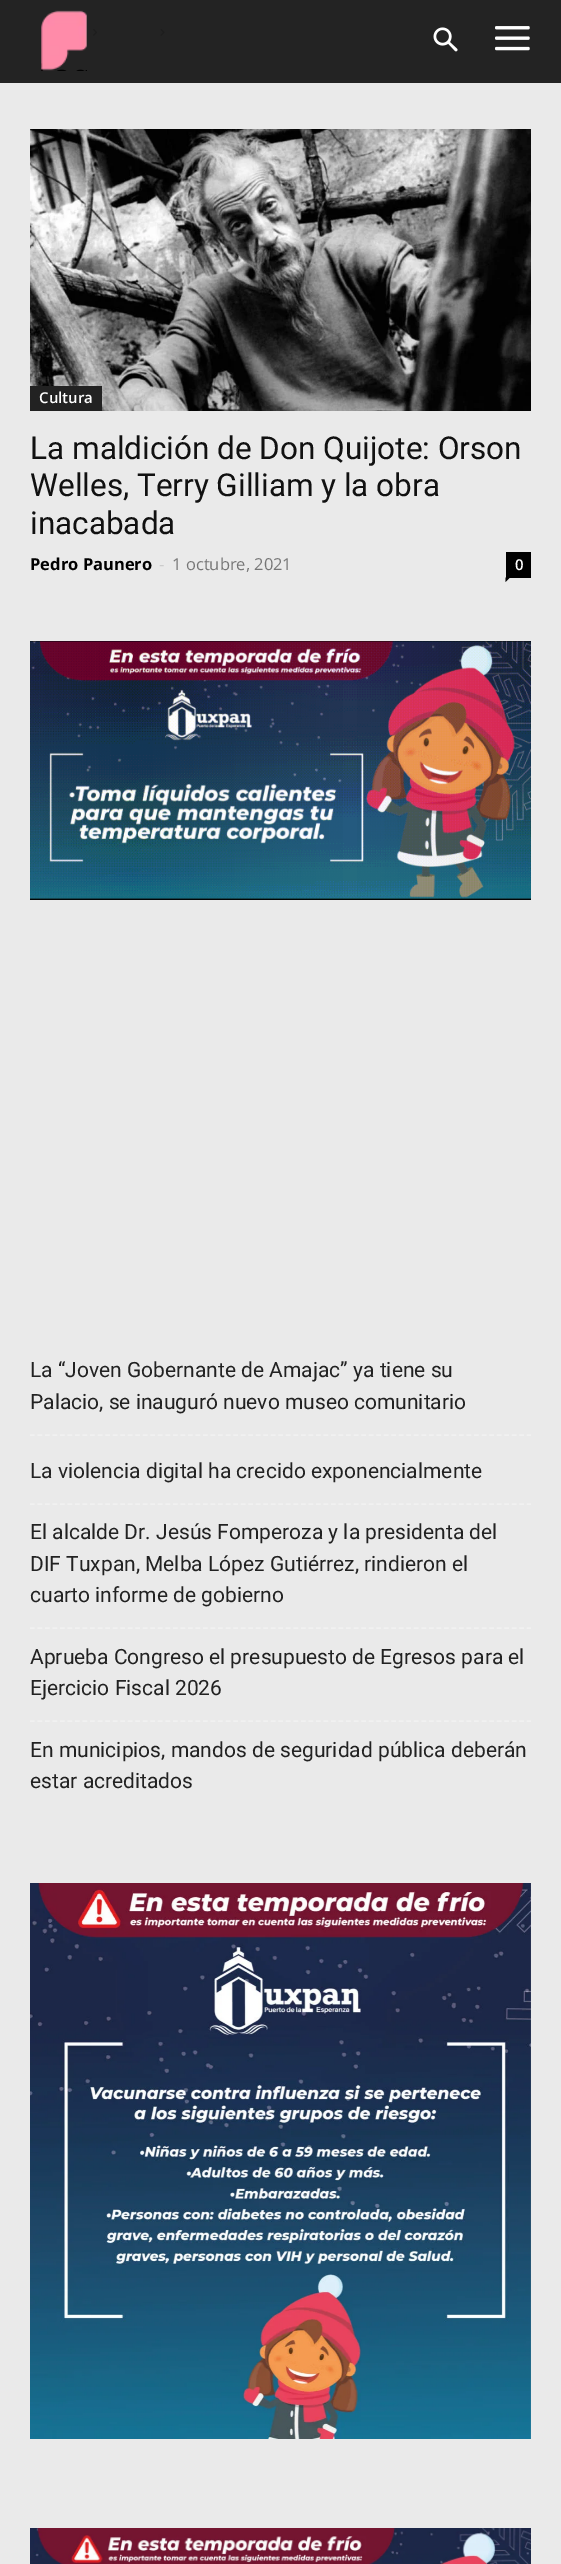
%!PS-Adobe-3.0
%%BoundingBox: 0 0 561 2564
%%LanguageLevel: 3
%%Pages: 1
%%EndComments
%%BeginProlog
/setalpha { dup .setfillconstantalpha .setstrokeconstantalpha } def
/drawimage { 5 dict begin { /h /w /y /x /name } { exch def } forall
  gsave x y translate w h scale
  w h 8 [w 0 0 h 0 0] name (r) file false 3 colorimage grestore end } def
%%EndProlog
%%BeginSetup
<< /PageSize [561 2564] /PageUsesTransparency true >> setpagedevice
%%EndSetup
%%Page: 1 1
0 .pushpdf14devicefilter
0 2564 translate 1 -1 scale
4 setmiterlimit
0.918 setgray
0 0 561 2564 rectfill
(images/4.raw) 93 29 4 7 drawimage
(images/5.raw) 160 29 5 7 drawimage
0.85 setalpha
0 setgray
0 0 561 83 rectfill
1 setalpha
(images/1.raw) 41 10 46 61 drawimage
(images/2.raw) 433 27 25 25 drawimage
(images/3.raw) 495 26 35 25 drawimage
(images/6.raw) 30 129 501 282 drawimage
0.133 setgray
30 386 72 25 rectfill
0 setgray
506 552 25 26 rectfill
newpath 505.5 577.5 moveto 510 577.5 lineto 505.5 582 lineto closepath fill
(images/7.raw) 30 641 501 259 drawimage
0.945 setgray
1.5 setlinewidth
[4.5 3.03] 0 setdash
newpath 30 1435 moveto 531 1435 lineto stroke
newpath 30 1504 moveto 531 1504 lineto stroke
newpath 30 1628 moveto 531 1628 lineto stroke
newpath 30 1721 moveto 531 1721 lineto stroke
(images/8.raw) 30 1883 501 556 drawimage
(images/9.raw) 30 2528 501 36 drawimage
/OpenSans-SemiBold [15 0 0 -15 0 0] selectfont
1 setgray
39 403 moveto (Cultura) show
/Roboto-Regular [31.5 0 0 -31.5 0 0] selectfont
0.067 setgray
30 459 moveto (La maldición de Don Quijote: Orson) show
30 496 moveto (Welles, Terry Gilliam y la obra) show
30 534 moveto (inacabada) show
/OpenSans-Bold [16.5 0 0 -16.5 0 0] selectfont
0 setgray
30 570 moveto (Pedro Paunero) show
/OpenSans-Regular [16.5 0 0 -16.5 0 0] selectfont
0.8 setgray
159 570 moveto (-) show
0.463 setgray
172 570 moveto (1 octubre, 2021) show
/OpenSans-SemiBold [15 0 0 -15 0 0] selectfont
1 setgray
515 570 moveto (0) show
/Roboto-Regular [21 0 0 -21 0 0] selectfont
0.133 setgray
30 1377 moveto (La “Joven Gobernante de Amajac” ya tiene su) show
30 1409 moveto (Palacio, se inauguró nuevo museo comunitario) show
30 1478 moveto (La violencia digital ha crecido exponencialmente) show
30 1539 moveto (El alcalde Dr. Jesús Fomperoza y la presidenta del) show
30 1571 moveto (DIF Tuxpan, Melba López Gutiérrez, rindieron el) show
30 1602 moveto (cuarto informe de gobierno) show
30 1664 moveto (Aprueba Congreso el presupuesto de Egresos para el) show
30 1695 moveto (Ejercicio Fiscal 2026) show
30 1757 moveto (En municipios, mandos de seguridad pública deberán) show
30 1788 moveto (estar acreditados) show
.poppdf14devicefilter showpage
%%EOF
